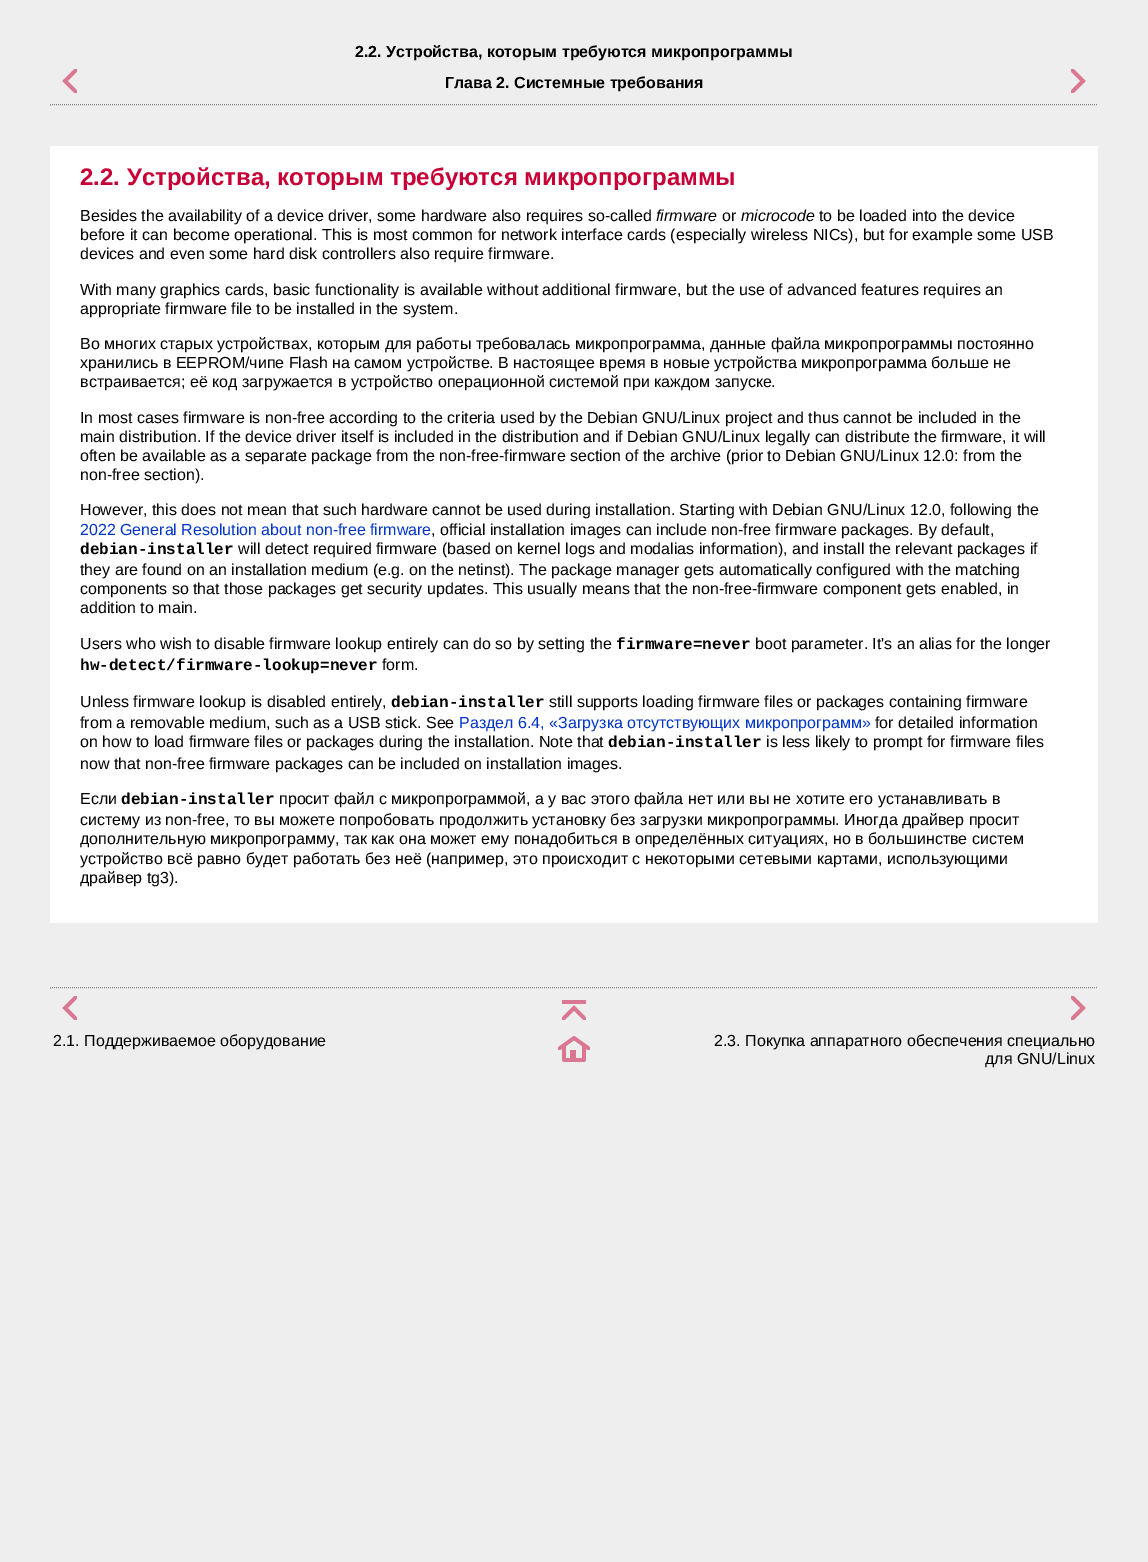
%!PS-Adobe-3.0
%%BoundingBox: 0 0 1148 1562
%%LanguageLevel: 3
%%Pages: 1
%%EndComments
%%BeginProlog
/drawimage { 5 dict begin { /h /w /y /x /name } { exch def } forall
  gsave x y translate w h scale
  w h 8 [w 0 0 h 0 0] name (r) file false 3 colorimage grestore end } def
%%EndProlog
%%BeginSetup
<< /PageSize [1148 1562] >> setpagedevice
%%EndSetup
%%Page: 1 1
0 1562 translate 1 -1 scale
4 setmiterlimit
0.933 setgray
0 0 1148 1562 rectfill
(images/1.raw) 62 69 15 24 drawimage
(images/2.raw) 1071 69 15 24 drawimage
0.502 setgray
[1 1] 0 setdash
newpath 50 104.5 moveto 1098 104.5 lineto stroke
0.624 setgray
50 104 1 2 rectfill
1 setgray
50 146 1048 777 rectfill
0.502 setgray
newpath 50 987.5 moveto 1098 987.5 lineto stroke
0.624 setgray
50 987 1 2 rectfill
(images/1.raw) 62 996 15 24 drawimage
(images/3.raw) 562 1000 24 20 drawimage
(images/2.raw) 1071 996 15 24 drawimage
(images/4.raw) 558 1036 32 26 drawimage
/LiberationSans-Bold [16 0 0 -16 0 0] selectfont
0 setgray
355 57 moveto (2.2. Устройства, которым требуются микропрограммы) show
445 88 moveto (Глава 2. Системные требования) show
/LiberationSans-Bold [24 0 0 -24 0 0] selectfont
0.78 0 0.212 setrgbcolor
80 185 moveto (2.2. Устройства, которым требуются микропрограммы) show
/LiberationSans-Regular [16 0 0 -16 0 0] selectfont
0 setgray
80 221 moveto (Besides the availability of a device driver, some hardware also requires so-called) show
/LiberationSans-Italic [16 0 0 -16 0 0] selectfont
656 221 moveto (firmware) show
/LiberationSans-Regular [16 0 0 -16 0 0] selectfont
722 221 moveto (or) show
/LiberationSans-Italic [16 0 0 -16 0 0] selectfont
741 221 moveto (microcode) show
/LiberationSans-Regular [16 0 0 -16 0 0] selectfont
819 221 moveto (to be loaded into the device) show
80 240 moveto (before it can become operational. This is most common for network interface cards \(especially wireless NICs\), but for example some USB) show
80 259 moveto (devices and even some hard disk controllers also require firmware.) show
80 295 moveto (With many graphics cards, basic functionality is available without additional firmware, but the use of advanced features requires an) show
80 314 moveto (appropriate firmware file to be installed in the system.) show
80 349 moveto (Во многих старых устройствах, которым для работы требовалась микропрограмма, данные файла микропрограммы постоянно) show
80 368 moveto (хранились в EEPROM/чипе Flash на самом устройстве. В настоящее время в новые устройства микропрограмма больше не) show
80 387 moveto (встраивается; её код загружается в устройство операционной системой при каждом запуске.) show
80 423 moveto (In most cases firmware is non-free according to the criteria used by the Debian GNU/Linux project and thus cannot be included in the) show
80 442 moveto (main distribution. If the device driver itself is included in the distribution and if Debian GNU/Linux legally can distribute the firmware, it will) show
80 461 moveto (often be available as a separate package from the non-free-firmware section of the archive \(prior to Debian GNU/Linux 12.0: from the) show
80 480 moveto (non-free section\).) show
80 515 moveto (However, this does not mean that such hardware cannot be used during installation. Starting with Debian GNU/Linux 12.0, following the) show
0 0.208 0.78 setrgbcolor
80 535 moveto (2022 General Resolution about non-free firmware) show
0 setgray
431 535 moveto (, official installation images can include non-free firmware packages. By default,) show
/LiberationMono-Bold [16 0 0 -16 0 0] selectfont
80 554 moveto (debian-installer) show
/LiberationSans-Regular [16 0 0 -16 0 0] selectfont
238 554 moveto (will detect required firmware \(based on kernel logs and modalias information\), and install the relevant packages if) show
80 575 moveto (they are found on an installation medium \(e.g. on the netinst\). The package manager gets automatically configured with the matching) show
80 594 moveto (components so that those packages get security updates. This usually means that the non-free-firmware component gets enabled, in) show
80 613 moveto (addition to main.) show
80 649 moveto (Users who wish to disable firmware lookup entirely can do so by setting the) show
/LiberationMono-Bold [16 0 0 -16 0 0] selectfont
616 649 moveto (firmware=never) show
/LiberationSans-Regular [16 0 0 -16 0 0] selectfont
755 649 moveto (boot parameter. It's an alias for the longer) show
/LiberationMono-Bold [16 0 0 -16 0 0] selectfont
80 670 moveto (hw-detect/firmware-lookup=never) show
/LiberationSans-Regular [16 0 0 -16 0 0] selectfont
382 670 moveto (form.) show
80 707 moveto (Unless firmware lookup is disabled entirely,) show
/LiberationMono-Bold [16 0 0 -16 0 0] selectfont
391 707 moveto (debian-installer) show
/LiberationSans-Regular [16 0 0 -16 0 0] selectfont
549 707 moveto (still supports loading firmware files or packages containing firmware) show
80 728 moveto (from a removable medium, such as a USB stick. See) show
0 0.208 0.78 setrgbcolor
459 728 moveto (Раздел 6.4, «Загрузка отсутствующих микропрограмм») show
0 setgray
875 728 moveto (for detailed information) show
80 747 moveto (on how to load firmware files or packages during the installation. Note that) show
/LiberationMono-Bold [16 0 0 -16 0 0] selectfont
608 747 moveto (debian-installer) show
/LiberationSans-Regular [16 0 0 -16 0 0] selectfont
766 747 moveto (is less likely to prompt for firmware files) show
80 769 moveto (now that non-free firmware packages can be included on installation images.) show
80 804 moveto (Если) show
/LiberationMono-Bold [16 0 0 -16 0 0] selectfont
121 804 moveto (debian-installer) show
/LiberationSans-Regular [16 0 0 -16 0 0] selectfont
279 804 moveto (просит файл с микропрограммой, а у вас этого файла нет или вы не хотите его устанавливать в) show
80 825 moveto (систему из non-free, то вы можете попробовать продолжить установку без загрузки микропрограммы. Иногда драйвер просит) show
80 844 moveto (дополнительную микропрограмму, так как она может ему понадобиться в определённых ситуациях, но в большинстве систем) show
80 864 moveto (устройство всё равно будет работать без неё \(например, это происходит с некоторыми сетевыми картами, использующими) show
80 883 moveto (драйвер tg3\).) show
53 1046 moveto (2.1. Поддерживаемое оборудование) show
714 1046 moveto (2.3. Покупка аппаратного обеспечения специально) show
985 1064 moveto (для GNU/Linux) show
showpage
%%EOF
